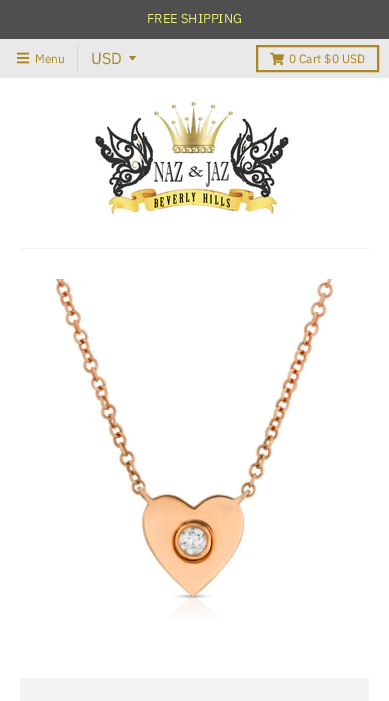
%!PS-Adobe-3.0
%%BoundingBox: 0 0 389 701
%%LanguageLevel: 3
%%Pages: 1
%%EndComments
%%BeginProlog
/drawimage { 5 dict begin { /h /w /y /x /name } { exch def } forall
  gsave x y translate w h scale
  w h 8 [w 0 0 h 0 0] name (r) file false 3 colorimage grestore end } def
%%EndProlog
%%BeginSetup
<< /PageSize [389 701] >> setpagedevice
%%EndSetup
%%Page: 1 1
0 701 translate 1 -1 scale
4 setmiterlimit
1 setgray
0 0 389 701 rectfill
0.31 setgray
0 0 389 39 rectfill
0.914 setgray
0 39 389 39 rectfill
0.863 0.835 0.757 setrgbcolor
77 45 1 27 rectfill
(images/1.raw) 16 52 14 12 drawimage
0.671 0.529 0.137 setrgbcolor
newpath 129 56 moveto 133.5 61.5 131.5 61.5 136 56 curveto closepath fill
2 setlinewidth
257 46 121 25 rectstroke
(images/2.raw) 270 52 14 14 drawimage
(images/3.raw) 95 100 196 118 drawimage
0.969 0.953 0.91 setrgbcolor
20 248 349 1 rectfill
(images/4.raw) 55 279 279 340 drawimage
0.953 setgray
20 678 349 23 rectfill
/IBMPlexSans-Regular [13 0 0 -13 0 0] selectfont
0.929 0.933 0.451 setrgbcolor
147 23 moveto (FREE SHIPPING) show
/IBMPlexSans-Regular [12 0 0 -12 0 0] selectfont
0.671 0.529 0.137 setrgbcolor
35 63 moveto (Menu) show
/IBMPlexSans-Regular [16 0 0 -16 0 0] selectfont
91 64 moveto (USD) show
/IBMPlexSans-Regular [12 0 0 -12 0 0] selectfont
289 63 moveto (0 Cart $0 USD) show
showpage
%%EOF
